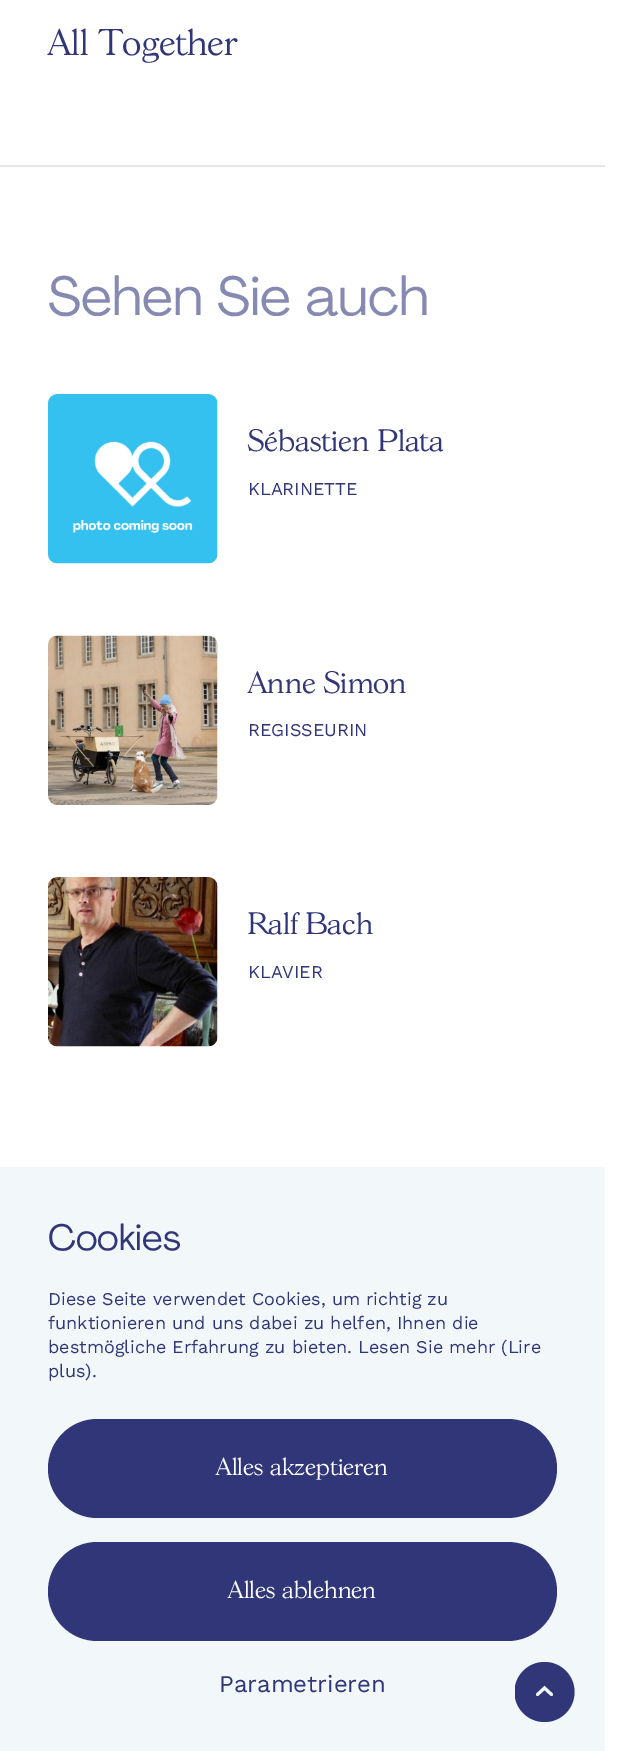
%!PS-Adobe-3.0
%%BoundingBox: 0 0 619 1751
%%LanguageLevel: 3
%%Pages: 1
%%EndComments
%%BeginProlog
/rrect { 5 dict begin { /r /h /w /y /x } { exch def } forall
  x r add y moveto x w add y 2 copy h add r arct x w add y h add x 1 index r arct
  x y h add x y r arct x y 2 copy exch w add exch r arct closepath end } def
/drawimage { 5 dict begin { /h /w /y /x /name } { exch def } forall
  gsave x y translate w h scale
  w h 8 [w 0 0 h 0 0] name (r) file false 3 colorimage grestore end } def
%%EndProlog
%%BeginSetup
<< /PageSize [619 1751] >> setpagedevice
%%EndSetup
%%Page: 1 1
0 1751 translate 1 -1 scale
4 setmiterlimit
1 setgray
0 0 619 1751 rectfill
0.898 0.906 0.922 setrgbcolor
0 165 605 2 rectfill
(images/1.raw) 48 394 170 170 drawimage
(images/2.raw) 48 635 170 170 drawimage
(images/3.raw) 48 877 170 170 drawimage
0.949 0.969 0.98 setrgbcolor
0 1167 605 584 rectfill
0.192 0.212 0.475 setrgbcolor
48 1419 509 99 49.5 rrect fill
48 1542 509 99 49.5 rrect fill
gsave
515 1662 60 60 rectclip
newpath 544.5 1692 30 0 360 arc closepath fill
grestore
0.949 0.969 0.98 setrgbcolor
3 setlinewidth
1 setlinecap
newpath 537.5 1694.5 moveto 544.5 1688 lineto 551.5 1694.5 lineto stroke
/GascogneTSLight-Light [36 0 0 -36 0 0] selectfont
0.192 0.212 0.475 setrgbcolor
48 55 moveto (All Together) show
/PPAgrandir-Regular [54 0 0 -54 0 0] selectfont
0.525 0.537 0.694 setrgbcolor
48 315 moveto (Sehen Sie auch) show
/GascogneTSLight-Light [30 0 0 -30 0 0] selectfont
0.192 0.212 0.475 setrgbcolor
248 451 moveto (Sébastien Plata) show
/WorkSans-Regular [18 0 0 -18 0 0] selectfont
248 495 moveto (KLARINETTE) show
/GascogneTSLight-Light [30 0 0 -30 0 0] selectfont
248 693 moveto (Anne Simon) show
/WorkSans-Regular [18 0 0 -18 0 0] selectfont
248 736 moveto (REGISSEURIN) show
/GascogneTSLight-Light [30 0 0 -30 0 0] selectfont
248 934 moveto (Ralf Bach) show
/WorkSans-Regular [18 0 0 -18 0 0] selectfont
248 978 moveto (KLAVIER) show
/PPAgrandir-Regular [36 0 0 -36 0 0] selectfont
48 1250 moveto (Cookies) show
/WorkSans-Regular [18 0 0 -18 0 0] selectfont
48 1305 moveto (Diese Seite verwendet Cookies, um richtig zu) show
48 1329 moveto (funktionieren und uns dabei zu helfen, Ihnen die) show
48 1353 moveto (bestmögliche Erfahrung zu bieten. Lesen Sie mehr \(Lire) show
48 1377 moveto (plus\).) show
/GascogneTSLight-Light [24 0 0 -24 0 0] selectfont
1 setgray
216 1475 moveto (Alles akzeptieren) show
228 1598 moveto (Alles ablehnen) show
/WorkSans-Regular [24 0 0 -24 0 0] selectfont
0.192 0.212 0.475 setrgbcolor
219 1692 moveto (Parametrieren) show
showpage
%%EOF
